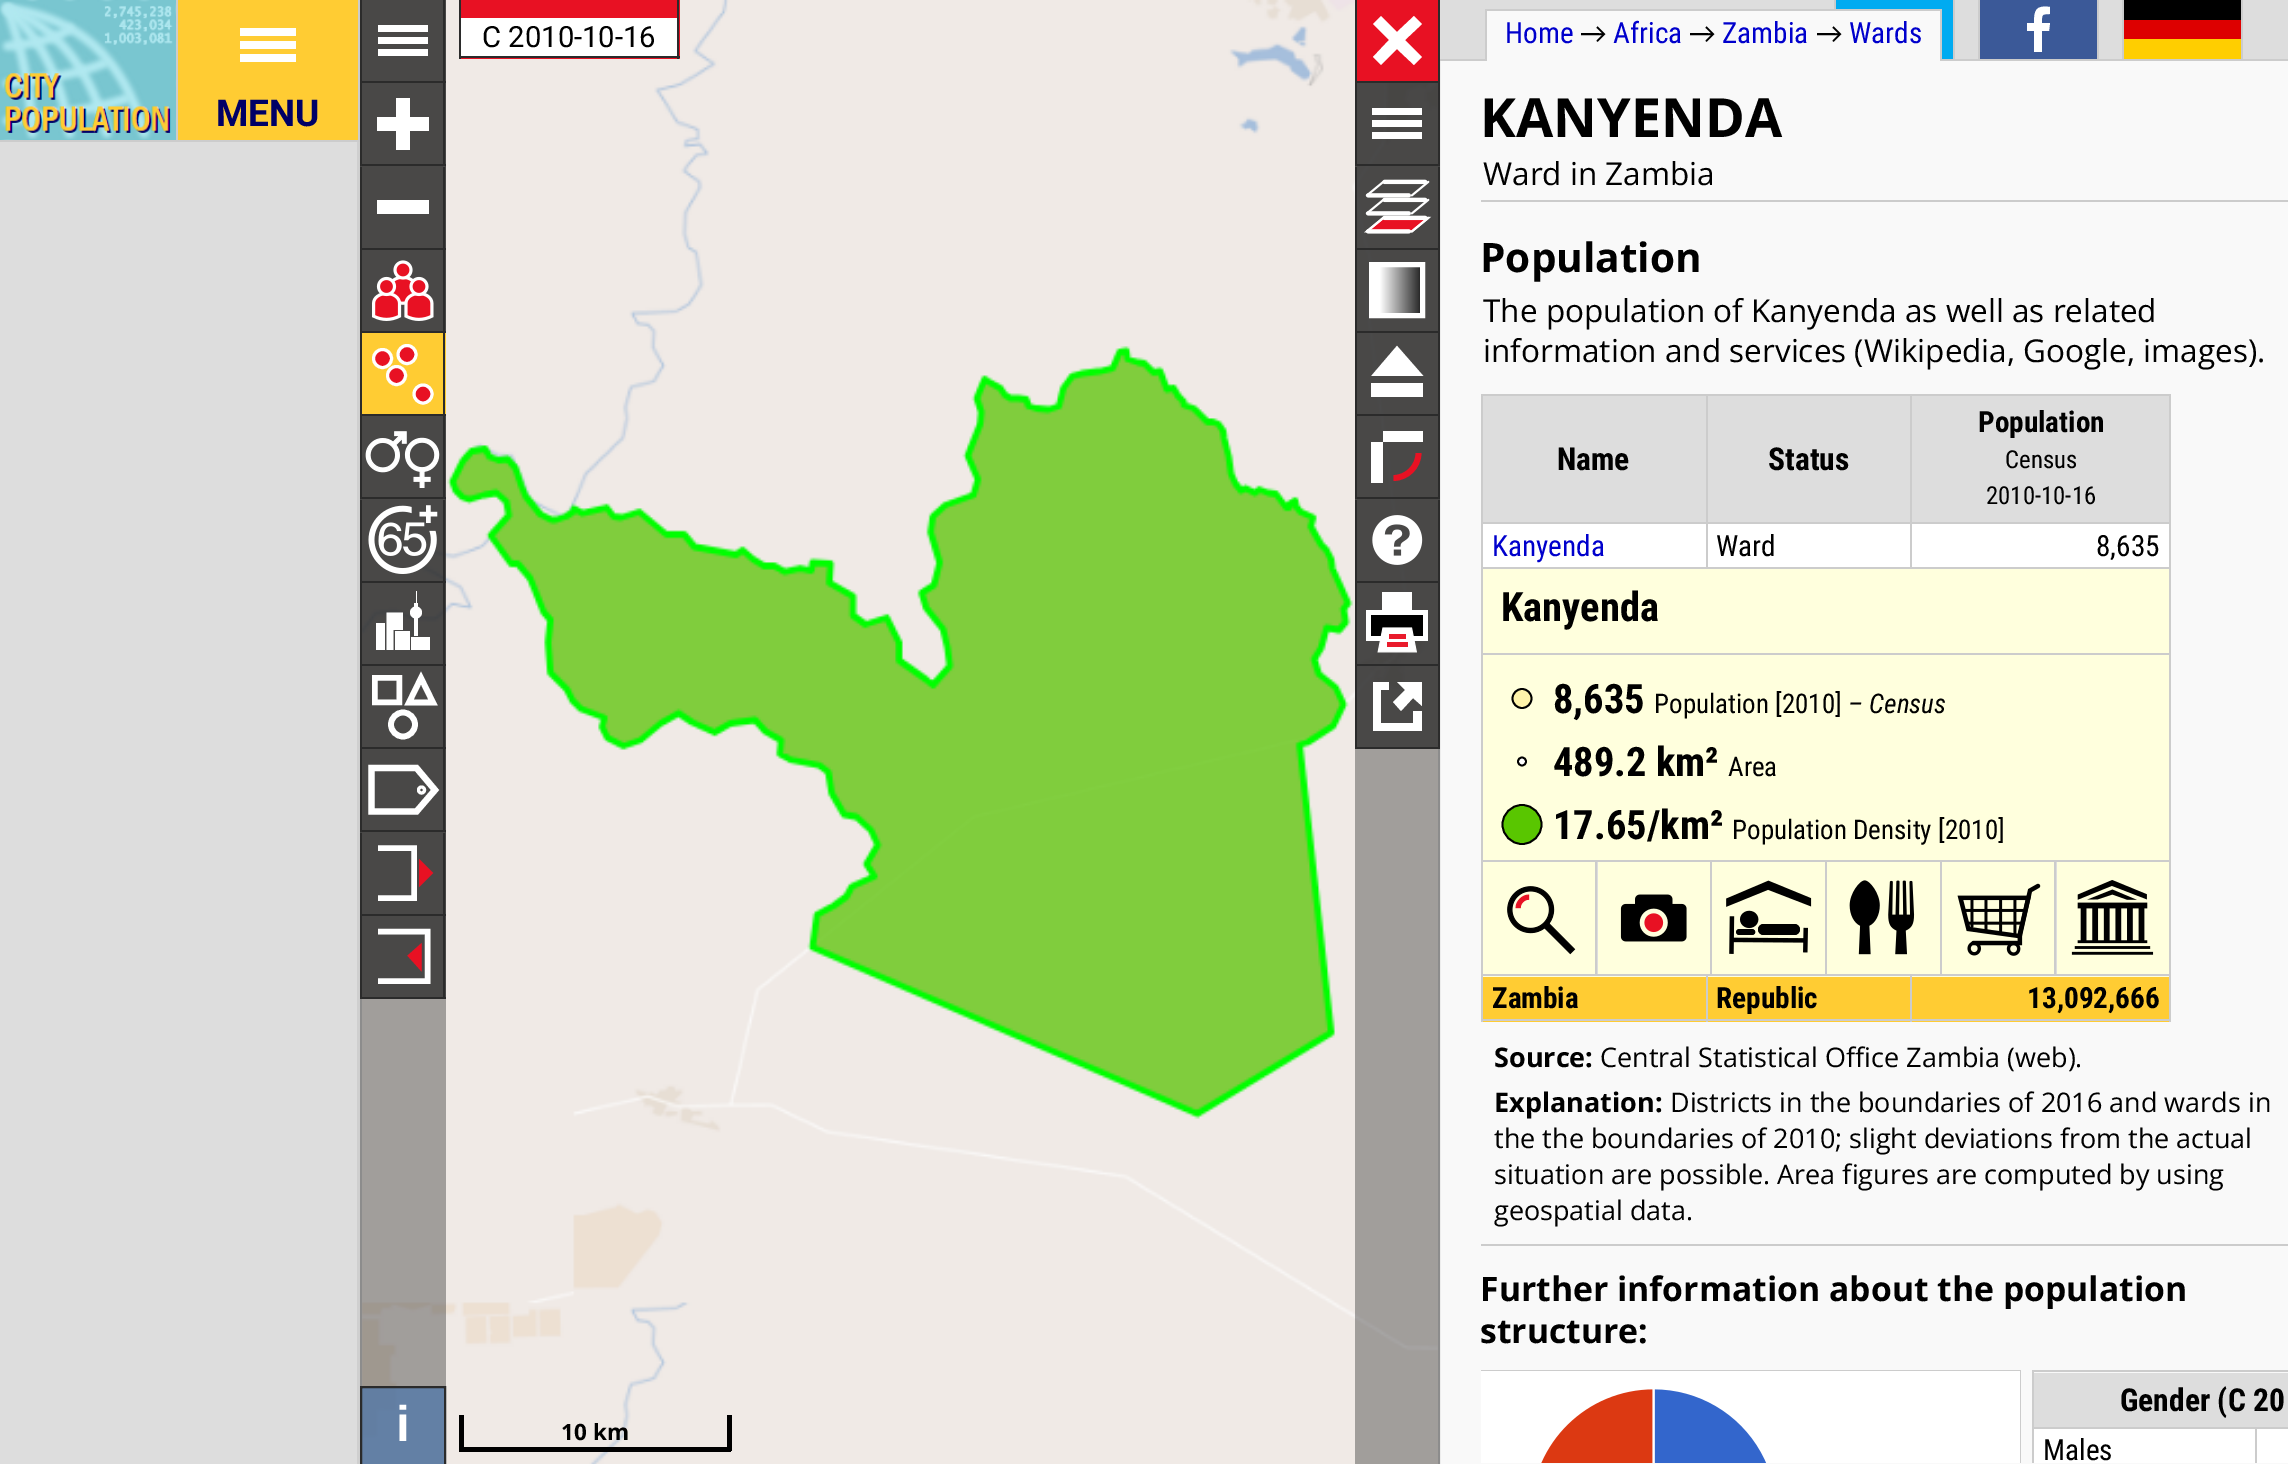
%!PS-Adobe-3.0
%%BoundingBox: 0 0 2288 1464
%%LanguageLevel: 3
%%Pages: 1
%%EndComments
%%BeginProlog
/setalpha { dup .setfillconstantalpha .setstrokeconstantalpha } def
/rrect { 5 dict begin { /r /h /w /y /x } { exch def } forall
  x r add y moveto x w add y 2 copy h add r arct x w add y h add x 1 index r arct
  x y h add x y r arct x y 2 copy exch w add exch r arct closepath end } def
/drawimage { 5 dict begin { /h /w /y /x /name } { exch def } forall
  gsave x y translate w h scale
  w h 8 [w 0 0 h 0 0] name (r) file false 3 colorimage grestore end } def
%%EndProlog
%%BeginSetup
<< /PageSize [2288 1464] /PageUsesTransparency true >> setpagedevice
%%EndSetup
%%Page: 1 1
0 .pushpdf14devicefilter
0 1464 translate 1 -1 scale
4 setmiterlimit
0.976 setgray
0 0 2288 1464 rectfill
0.8 setgray
2 setlinewidth
361 -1 1078 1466 rectstroke
(images/7.raw) 362 0 1076 1464 drawimage
0.4 setalpha
0.169 setgray
360 0 86 1464 rectfill
0.75 setalpha
362 0 84 81 rectfill
1 setalpha
360 81 86 2 rectfill
360 0 2 81 rectfill
1 setgray
378 25 50 7 rectfill
0.169 setgray
443 0 2 81 rectfill
1 setgray
378 37 50 7 rectfill
378 49 50 7 rectfill
0.75 setalpha
0.169 setgray
360 83 86 84 rectfill
1 setalpha
360 164 86 2 rectfill
360 83 2 81 rectfill
1 setgray
377 117 52 14 rectfill
396 98 14 52 rectfill
0.169 setgray
443 83 2 81 rectfill
0.75 setalpha
362 167 84 81 rectfill
1 setalpha
360 248 86 2 rectfill
360 167 2 81 rectfill
1 setgray
377 200 52 14 rectfill
0.169 setgray
443 167 2 81 rectfill
0.75 setalpha
362 250 84 81 rectfill
1 setalpha
360 331 86 2 rectfill
360 250 2 81 rectfill
(images/1.raw) 372 260 62 61 drawimage
443 250 2 81 rectfill
1 0.8 0.2 setrgbcolor
362 333 84 81 rectfill
0.169 setgray
360 414 86 2 rectfill
360 333 2 81 rectfill
0.91 0.067 0.137 setrgbcolor
newpath 382.5 358.5 9 0 360 arc closepath gsave fill grestore
1 setgray
3 setlinewidth
stroke
0.91 0.067 0.137 setrgbcolor
newpath 407 354.5 9 0 360 arc closepath gsave fill grestore
1 setgray
stroke
0.169 setgray
443 333 2 81 rectfill
0.91 0.067 0.137 setrgbcolor
newpath 396.5 375.5 9 0 360 arc closepath gsave fill grestore
1 setgray
stroke
0.91 0.067 0.137 setrgbcolor
newpath 423 394 9 0 360 arc closepath gsave fill grestore
1 setgray
stroke
0.75 setalpha
0.169 setgray
360 416 86 84 rectfill
1 setalpha
360 497 86 2 rectfill
360 416 2 81 rectfill
(images/2.raw) 365 431 75 57 drawimage
443 416 2 81 rectfill
0.75 setalpha
362 500 84 81 rectfill
1 setalpha
360 581 86 2 rectfill
360 500 2 81 rectfill
(images/3.raw) 368 505 70 69 drawimage
443 500 2 81 rectfill
0.75 setalpha
362 583 84 81 rectfill
1 setalpha
360 664 86 2 rectfill
360 583 2 81 rectfill
1 setgray
414 603 4 33 rectfill
newpath 416 612.5 6 0 360 arc closepath fill
416 591 1 19 rectfill
0.169 setgray
443 583 2 81 rectfill
1 setgray
376 623 9 27 rectfill
newpath 386.5 650 moveto 393.5 650 lineto 393.5 630 lineto 403 630 lineto 403 612.5 lineto 386.5 612.5 lineto closepath fill
395 631 15 19 rectfill
411 637 19 13 rectfill
0.75 setalpha
0.169 setgray
362 666 84 81 rectfill
1 setalpha
360 747 86 2 rectfill
360 666 2 81 rectfill
1 setgray
5.5 setlinewidth
374.75 677.75 24.5 24.5 rectstroke
5.7 setlinewidth
newpath 409 702.5 moveto 433 702.5 lineto 421 678 lineto closepath stroke
0.169 setgray
443 666 2 81 rectfill
1 setgray
newpath 403 724.5 12 0 360 arc closepath stroke
0.75 setalpha
0.169 setgray
360 749 86 84 rectfill
1 setalpha
360 830 86 2 rectfill
360 749 2 81 rectfill
1 setgray
6.2 setlinewidth
newpath 371.5 768 moveto 416.5 768 lineto 435 790 lineto 416.5 811.5 lineto 371.5 811.5 lineto closepath stroke
0.169 setgray
443 749 2 81 rectfill
1 setgray
3.1 setlinewidth
newpath 421.5 790 3 0 360 arc closepath stroke
0.75 setalpha
0.169 setgray
362 833 84 81 rectfill
1 setalpha
360 914 86 2 rectfill
360 833 2 81 rectfill
1 setgray
5.6 setlinewidth
newpath 378 898 moveto 414 898 lineto 414 848 lineto 378 848 lineto stroke
0.91 0.067 0.137 setrgbcolor
7.9 setlinewidth
newpath 427.5 873 moveto 423 877.5 lineto 423 868.5 lineto closepath stroke
0.169 setgray
443 833 2 81 rectfill
0.75 setalpha
362 916 84 81 rectfill
1 setalpha
360 997 86 2 rectfill
360 916 2 81 rectfill
1 setgray
5.6 setlinewidth
newpath 378 981 moveto 427.5 981 lineto 427.5 931.5 lineto 378 931.5 lineto stroke
0.169 setgray
443 916 2 81 rectfill
0.91 0.067 0.137 setrgbcolor
7.9 setlinewidth
newpath 413 956 moveto 417.5 961 lineto 417.5 952 lineto closepath stroke
461 0 219 59 rectfill
0.169 setgray
677 0 2 59 rectfill
459 56 221 2 rectfill
459 0 2 59 rectfill
1 setgray
461 18 216 38 rectfill
0.4 setalpha
0.169 setgray
1355 83 85 1381 rectfill
1 setalpha
0.91 0.067 0.137 setrgbcolor
1357 0 81 81 rectfill
0.169 setgray
1355 81 85 2 rectfill
1355 0 2 81 rectfill
1 setgray
newpath 1381 16 moveto 1397 32 lineto 1414 16 lineto 1422 24 lineto 1405 40 lineto 1422 57 lineto 1414 65 lineto 1397 49 lineto 1381 65 lineto 1373 57 lineto 1389 40 lineto 1373 24 lineto closepath fill
0.169 setgray
1438 0 2 81 rectfill
0.75 setalpha
1355 83 85 84 rectfill
1 setalpha
1355 164 85 2 rectfill
1355 83 2 81 rectfill
1 setgray
1372 108 50 7 rectfill
0.169 setgray
1438 83 2 81 rectfill
1 setgray
1372 120 50 7 rectfill
1372 132 50 7 rectfill
0.75 setalpha
0.169 setgray
1357 167 81 81 rectfill
1 setalpha
1355 248 85 2 rectfill
1355 167 2 81 rectfill
(images/4.raw) 1364 179 68 55 drawimage
1438 167 2 81 rectfill
0.75 setalpha
1357 250 81 81 rectfill
1 setalpha
1355 331 85 2 rectfill
1355 250 2 81 rectfill
gsave newpath 1374 267 moveto 1420 267 lineto 1420 313 lineto 1374 313 lineto closepath clip newpath
<< /ShadingType 2 /ColorSpace /DeviceRGB /Coords [1372 265 1428 265] /Extend [true true] /Function << /FunctionType 3 /Domain [0 1] /Functions [<< /FunctionType 2 /Domain [0 1] /C0 [1 1 1] /C1 [1 1 1] /N 1 >> << /FunctionType 2 /Domain [0 1] /C0 [1 1 1] /C1 [0 0 0] /N 1 >>] /Bounds [0.14] /Encode [0 1 0 1] >> >> shfill grestore
1 setgray
5 setlinewidth
1371.5 264.5 51 51 rectstroke
0.169 setgray
1438 250 2 81 rectfill
0.75 setalpha
1357 333 81 81 rectfill
1 setalpha
1355 414 85 2 rectfill
1355 333 2 81 rectfill
1 setgray
newpath 1377 374 moveto 1418 374 lineto 1397 350 lineto closepath fill
4.8 setlinewidth
newpath 1376.5 373.5 moveto 1418 373.5 lineto 1397 349.5 lineto closepath stroke
0.169 setgray
1438 333 2 81 rectfill
1 setgray
1371 383 52 14 rectfill
0.75 setalpha
0.169 setgray
1355 416 85 84 rectfill
1 setalpha
1355 497 85 2 rectfill
1355 416 2 81 rectfill
1 setgray
1383 431 40 11 rectfill
0.169 setgray
1438 416 2 81 rectfill
1 setgray
1371 442 12 41 rectfill
0.91 0.067 0.137 setrgbcolor
5.8 setlinewidth
newpath 1393.5 478 moveto 1407 478 1418.5 466.5 1418.5 453 curveto 1418.5 453 moveto 1418.5 466.5 1407 478 1393.5 478 curveto stroke
0.75 setalpha
0.169 setgray
1357 500 81 81 rectfill
1 setalpha
1355 581 85 2 rectfill
1355 500 2 81 rectfill
(images/5.raw) 1372 515 51 50 drawimage
1438 500 2 81 rectfill
0.75 setalpha
1357 583 81 81 rectfill
1 setalpha
1355 664 85 2 rectfill
1355 583 2 81 rectfill
(images/6.raw) 1366 592 62 61 drawimage
1438 583 2 81 rectfill
0.75 setalpha
1357 666 81 81 rectfill
1 setalpha
1355 747 85 2 rectfill
1355 666 2 81 rectfill
1 setgray
newpath 1413 723 moveto 1381 723 lineto 1381 690 lineto 1389 690 lineto 1389 682 lineto 1373 682 lineto 1373 731 lineto 1422 731 lineto 1422 711 lineto 1413 711 lineto closepath 1397 682 moveto 1405 690 lineto 1393 702 lineto 1401 711 lineto 1413 698 lineto 1422 706 lineto 1422 682 lineto closepath fill
0.169 setgray
1438 666 2 81 rectfill
0.4 setalpha
1 setgray
360 1386 86 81 9 rrect fill
0.5 setalpha
0 0.235 0.533 setrgbcolor
newpath 361 1387 moveto 445 1387 lineto 445 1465 lineto 361 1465 lineto closepath fill
1 setalpha
0.169 setgray
2 setlinewidth
newpath 361 1387 moveto 445 1387 lineto 445 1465 lineto 361 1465 lineto closepath stroke
0 setgray
727 1415 5 36 rectfill
459 1447 272 5 rectfill
459 1415 5 36 rectfill
0.867 setgray
1440 0 848 59 rectfill
0.8 setgray
1440 59 848 2 rectfill
0 0.671 0.945 setrgbcolor
1836 0 117 59 rectfill
0.976 setgray
1487 11 453 50 rectfill
0.8 setgray
1485 9 457 2 rectfill
1940 9 2 52 rectfill
1485 9 2 52 rectfill
1834 0 2 9 rectfill
1953 0 2 61 rectfill
1978 0 2 61 rectfill
0.231 0.349 0.596 setrgbcolor
1980 0 117 59 rectfill
0.8 setgray
2097 0 2 61 rectfill
1 setgray
newpath 2042 52 moveto 2042 31 lineto 2049 31 lineto 2050 23 lineto 2042 23 lineto 2042 15 2041 14 2050 14 curveto 2050 7 lineto 2036 5 2034 10 2034 23 curveto 2027 23 lineto 2027 31 lineto 2034 31 lineto 2034 52 lineto closepath fill
0.8 setgray
2122 0 2 61 rectfill
0 setgray
2124 0 117 20 rectfill
0.8 setgray
2241 0 2 61 rectfill
0.867 0 0 setrgbcolor
2124 20 117 19 rectfill
1 0.808 0 setrgbcolor
2124 39 117 20 rectfill
(images/8.raw) 0 0 176 140 drawimage
0.8 setgray
176 0 2 142 rectfill
0 140 178 2 rectfill
1 0.8 0.2 setrgbcolor
178 0 180 140 rectfill
0.8 setgray
358 0 2 142 rectfill
178 140 182 2 rectfill
1 setgray
240 28 56 8 rectfill
240 41 56 8 rectfill
240 54 56 8 rectfill
0.8 setgray
1481 200 807 2 rectfill
1481 394 690 2 rectfill
2169 394 2 628 rectfill
1 0.8 0.2 setrgbcolor
1483 977 223 45 rectfill
1708 977 461 45 rectfill
0.8 setgray
1481 1019 690 2 rectfill
1481 394 2 628 rectfill
0.867 setgray
1483 396 223 126 rectfill
1708 396 461 126 rectfill
0.8 setgray
1910 522 261 2 rectfill
1 setgray
1708 524 461 43 rectfill
0.8 setgray
1481 567 690 2 rectfill
1910 522 2 47 rectfill
1706 522 207 2 rectfill
1706 522 2 47 rectfill
1481 522 227 2 rectfill
1706 394 2 130 rectfill
1910 394 2 130 rectfill
1 setgray
1483 524 223 43 rectfill
1 1 0.867 setrgbcolor
1483 569 686 408 rectfill
0.8 setgray
1483 653 686 2 rectfill
1 0.957 0.667 setrgbcolor
newpath 1522 698.5 9.5 0 360 arc closepath gsave fill grestore
0 setgray
1.8 setlinewidth
stroke
1 setgray
newpath 1522 761.5 4 0 360 arc closepath gsave fill grestore
0 setgray
stroke
0.349 0.776 0 setrgbcolor
newpath 1522 824.5 19.5 0 360 arc closepath gsave fill grestore
0 setgray
stroke
0.867 setgray
1597 862 460 112 rectfill
0.8 setgray
1483 860 686 2 rectfill
1595 860 2 114 rectfill
1 1 0.867 setrgbcolor
1598 862 112 112 rectfill
0.8 setgray
1710 860 2 114 rectfill
1 1 0.867 setrgbcolor
1712 862 113 112 rectfill
0.8 setgray
1825 860 2 114 rectfill
1 1 0.867 setrgbcolor
1827 862 113 112 rectfill
0.8 setgray
1940 860 2 114 rectfill
1 1 0.867 setrgbcolor
1942 862 112 112 rectfill
0.8 setgray
2054 860 2 114 rectfill
(images/9.raw) 1507 886 69 69 drawimage
(images/10.raw) 1620 894 67 48 drawimage
(images/11.raw) 1726 880 86 74 drawimage
(images/12.raw) 1849 880 66 75 drawimage
(images/13.raw) 1957 883 84 73 drawimage
(images/14.raw) 2071 880 83 75 drawimage
1910 974 261 2 rectfill
1910 974 2 48 rectfill
1706 974 207 2 rectfill
1706 974 2 48 rectfill
1481 974 227 2 rectfill
1481 1244 807 2 rectfill
(images/15.raw) 1481 1370 540 93 drawimage
2032 1370 256 2 rectfill
2032 1370 2 93 rectfill
0.867 setgray
2034 1373 254 54 rectfill
1 setgray
2034 1429 221 34 rectfill
0.8 setgray
2255 1427 33 2 rectfill
2255 1427 2 36 rectfill
2032 1427 225 2 rectfill
1 setgray
2257 1429 31 34 rectfill
0.867 setgray
0 142 357 1322 rectfill
0.812 setgray
357 142 3 1322 rectfill
/Roboto-Regular [29.25 0 0 -29.25 0 0] selectfont
0 setgray
482 47 moveto (C 2010-10-16) show
/LiberationSans-Bold [50 0 0 -50 0 0] selectfont
1 setgray
396 1441 moveto (i) show
/OpenSans-Bold [22.5 0 0 -22.5 0 0] selectfont
0 setgray
561 1440 moveto (10 km) show
/RobotoCondensed-Regular [29.25 0 0 -29.25 0 0] selectfont
0 0 0.8 setrgbcolor
1505 43 moveto (Home) show
/Carlito-Regular [29.25 0 0 -29.25 0 0] selectfont
0 setgray
1580 43 moveto (→) show
/RobotoCondensed-Regular [29.25 0 0 -29.25 0 0] selectfont
0 0 0.8 setrgbcolor
1613 43 moveto (Africa) show
/Carlito-Regular [29.25 0 0 -29.25 0 0] selectfont
0 setgray
1689 43 moveto (→) show
/RobotoCondensed-Regular [29.25 0 0 -29.25 0 0] selectfont
0 0 0.8 setrgbcolor
1722 43 moveto (Zambia) show
/Carlito-Regular [29.25 0 0 -29.25 0 0] selectfont
0 setgray
1816 43 moveto (→) show
/RobotoCondensed-Regular [29.25 0 0 -29.25 0 0] selectfont
0 0 0.8 setrgbcolor
1849 43 moveto (Wards) show
/Roboto-Bold [37 0 0 -37 0 0] selectfont
0 0 0.4 setrgbcolor
216 126 moveto (MENU) show
/OpenSans-Bold [54 0 0 -54 0 0] selectfont
0 setgray
1480 137 moveto (KANYENDA) show
/OpenSans-Regular [31.5 0 0 -31.5 0 0] selectfont
1483 185 moveto (Ward in Zambia) show
/OpenSans-Bold [40.5 0 0 -40.5 0 0] selectfont
1480 272 moveto (Population) show
/OpenSans-Regular [31.5 0 0 -31.5 0 0] selectfont
1483 322 moveto (The population of Kanyenda as well as related) show
1483 362 moveto (information and services \(Wikipedia, Google, images\).) show
/RobotoCondensed-Bold [31.5 0 0 -31.5 0 0] selectfont
1557 470 moveto (Name) show
1768 470 moveto (Status) show
/RobotoCondensed-Bold [29.25 0 0 -29.25 0 0] selectfont
1978 432 moveto (Population) show
/RobotoCondensed-Regular [24.75 0 0 -24.75 0 0] selectfont
2005 468 moveto (Census) show
1986 504 moveto (2010-10-16) show
/RobotoCondensed-Regular [29.25 0 0 -29.25 0 0] selectfont
0 0 0.8 setrgbcolor
1492 556 moveto (Kanyenda) show
0 setgray
1716 556 moveto (Ward) show
2096 556 moveto (8,635) show
/RobotoCondensed-Bold [40.5 0 0 -40.5 0 0] selectfont
1501 621 moveto (Kanyenda) show
1553 713 moveto (8,635) show
/RobotoCondensed-Regular [27 0 0 -27 0 0] selectfont
1654 713 moveto (Population [2010]) show
/RobotoCondensed-Italic [27 0 0 -27 0 0] selectfont
1848 713 moveto (– Census) show
/RobotoCondensed-Bold [40.5 0 0 -40.5 0 0] selectfont
1553 776 moveto (489.2 km²) show
/RobotoCondensed-Regular [27 0 0 -27 0 0] selectfont
1728 776 moveto (Area) show
/RobotoCondensed-Bold [40.5 0 0 -40.5 0 0] selectfont
1553 839 moveto (17.65/km²) show
/RobotoCondensed-Regular [27 0 0 -27 0 0] selectfont
1732 839 moveto (Population Density [2010]) show
/RobotoCondensed-Bold [29.25 0 0 -29.25 0 0] selectfont
1492 1008 moveto (Zambia) show
1716 1008 moveto (Republic) show
2027 1008 moveto (13,092,666) show
/OpenSans-Bold [27 0 0 -27 0 0] selectfont
1494 1067 moveto (Source:) show
/OpenSans-Regular [27 0 0 -27 0 0] selectfont
1600 1067 moveto (Central Statistical Office Zambia \(web\).) show
/OpenSans-Bold [27 0 0 -27 0 0] selectfont
1494 1112 moveto (Explanation:) show
/OpenSans-Regular [27 0 0 -27 0 0] selectfont
1670 1112 moveto (Districts in the boundaries of 2016 and wards in) show
1494 1148 moveto (the the boundaries of 2010; slight deviations from the actual) show
1494 1184 moveto (situation are possible. Area figures are computed by using) show
1494 1220 moveto (geospatial data.) show
/OpenSans-Bold [33.75 0 0 -33.75 0 0] selectfont
1480 1301 moveto (Further information about the population) show
1480 1343 moveto (structure:) show
/RobotoCondensed-Bold [31.5 0 0 -31.5 0 0] selectfont
2120 1411 moveto (Gender \(C 20) show
/RobotoCondensed-Regular [29.25 0 0 -29.25 0 0] selectfont
2043 1460 moveto (Males) show
.poppdf14devicefilter showpage
%%EOF
